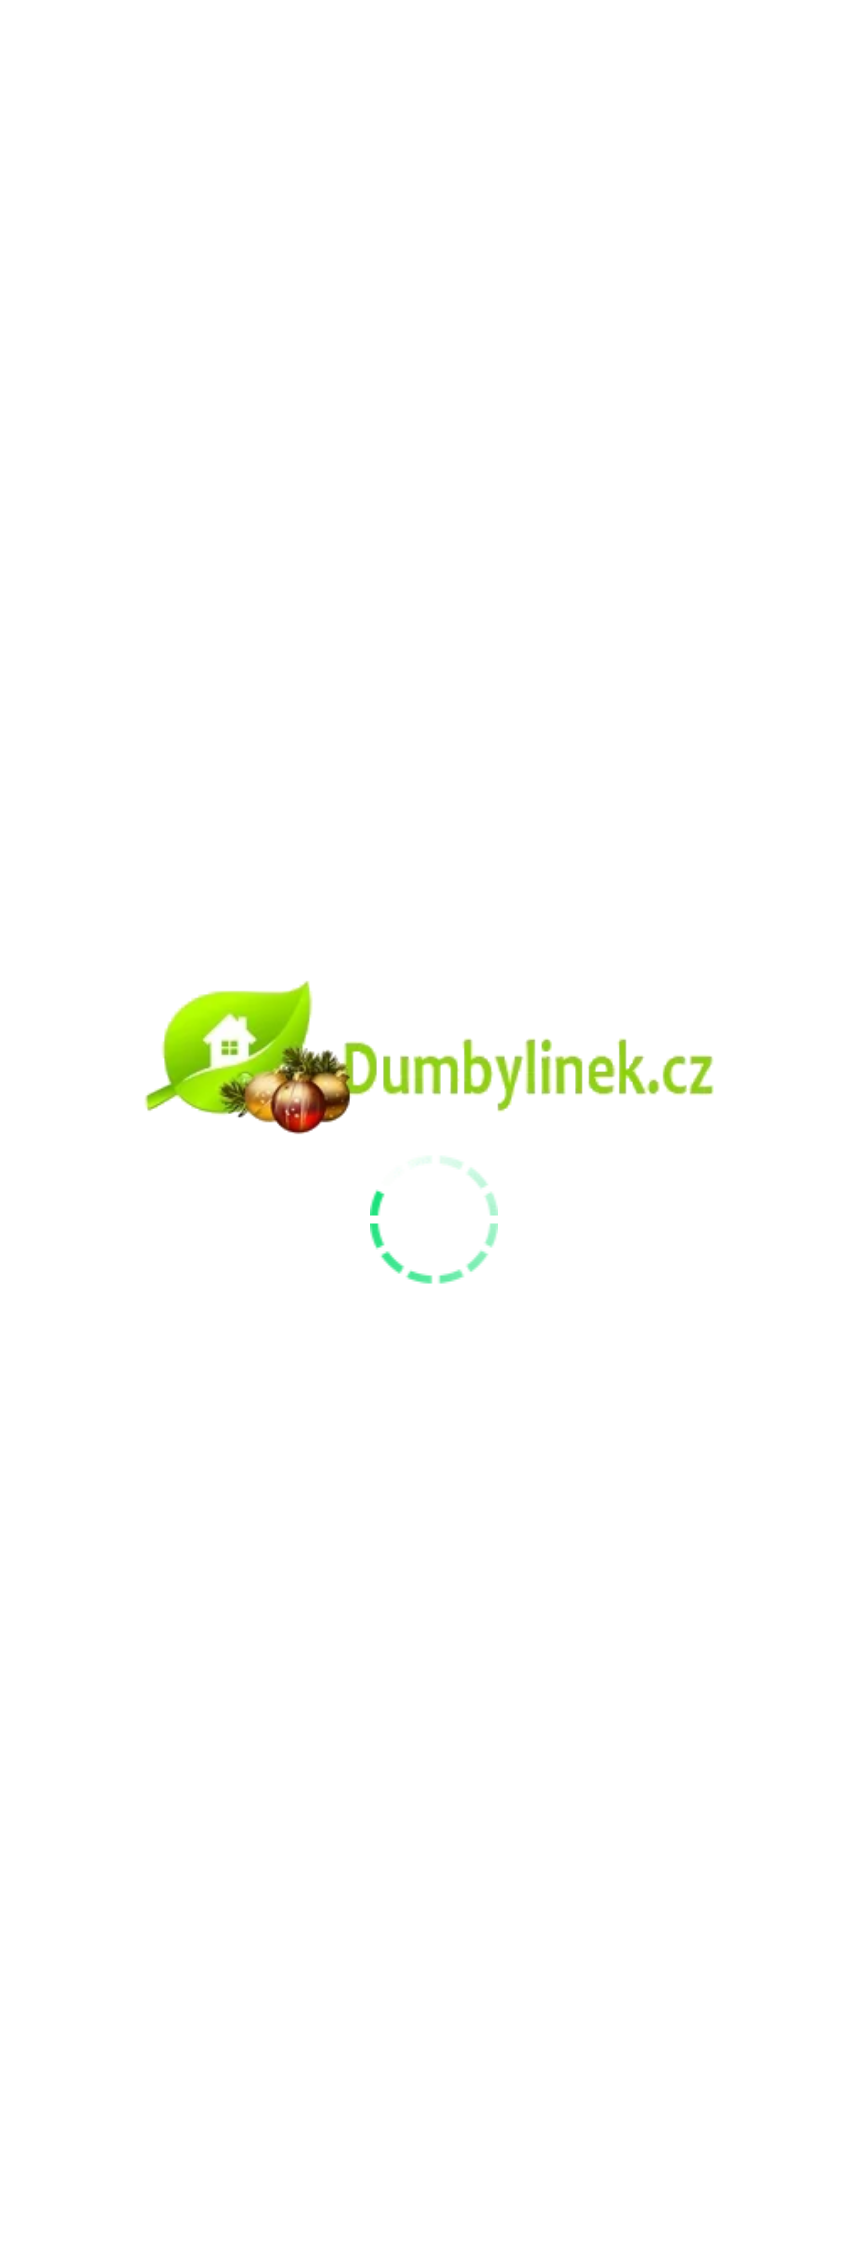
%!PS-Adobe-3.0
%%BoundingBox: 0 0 865 2249
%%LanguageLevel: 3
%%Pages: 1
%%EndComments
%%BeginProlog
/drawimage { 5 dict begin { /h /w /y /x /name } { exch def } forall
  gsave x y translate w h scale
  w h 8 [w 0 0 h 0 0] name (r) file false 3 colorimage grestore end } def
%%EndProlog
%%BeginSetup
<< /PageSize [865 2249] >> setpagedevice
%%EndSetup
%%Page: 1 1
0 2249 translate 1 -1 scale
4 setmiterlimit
1 setgray
0 0 865 2249 rectfill
(images/1.raw) 143 980 571 155 drawimage
(images/2.raw) 370 1155 128 129 drawimage
showpage
%%EOF
